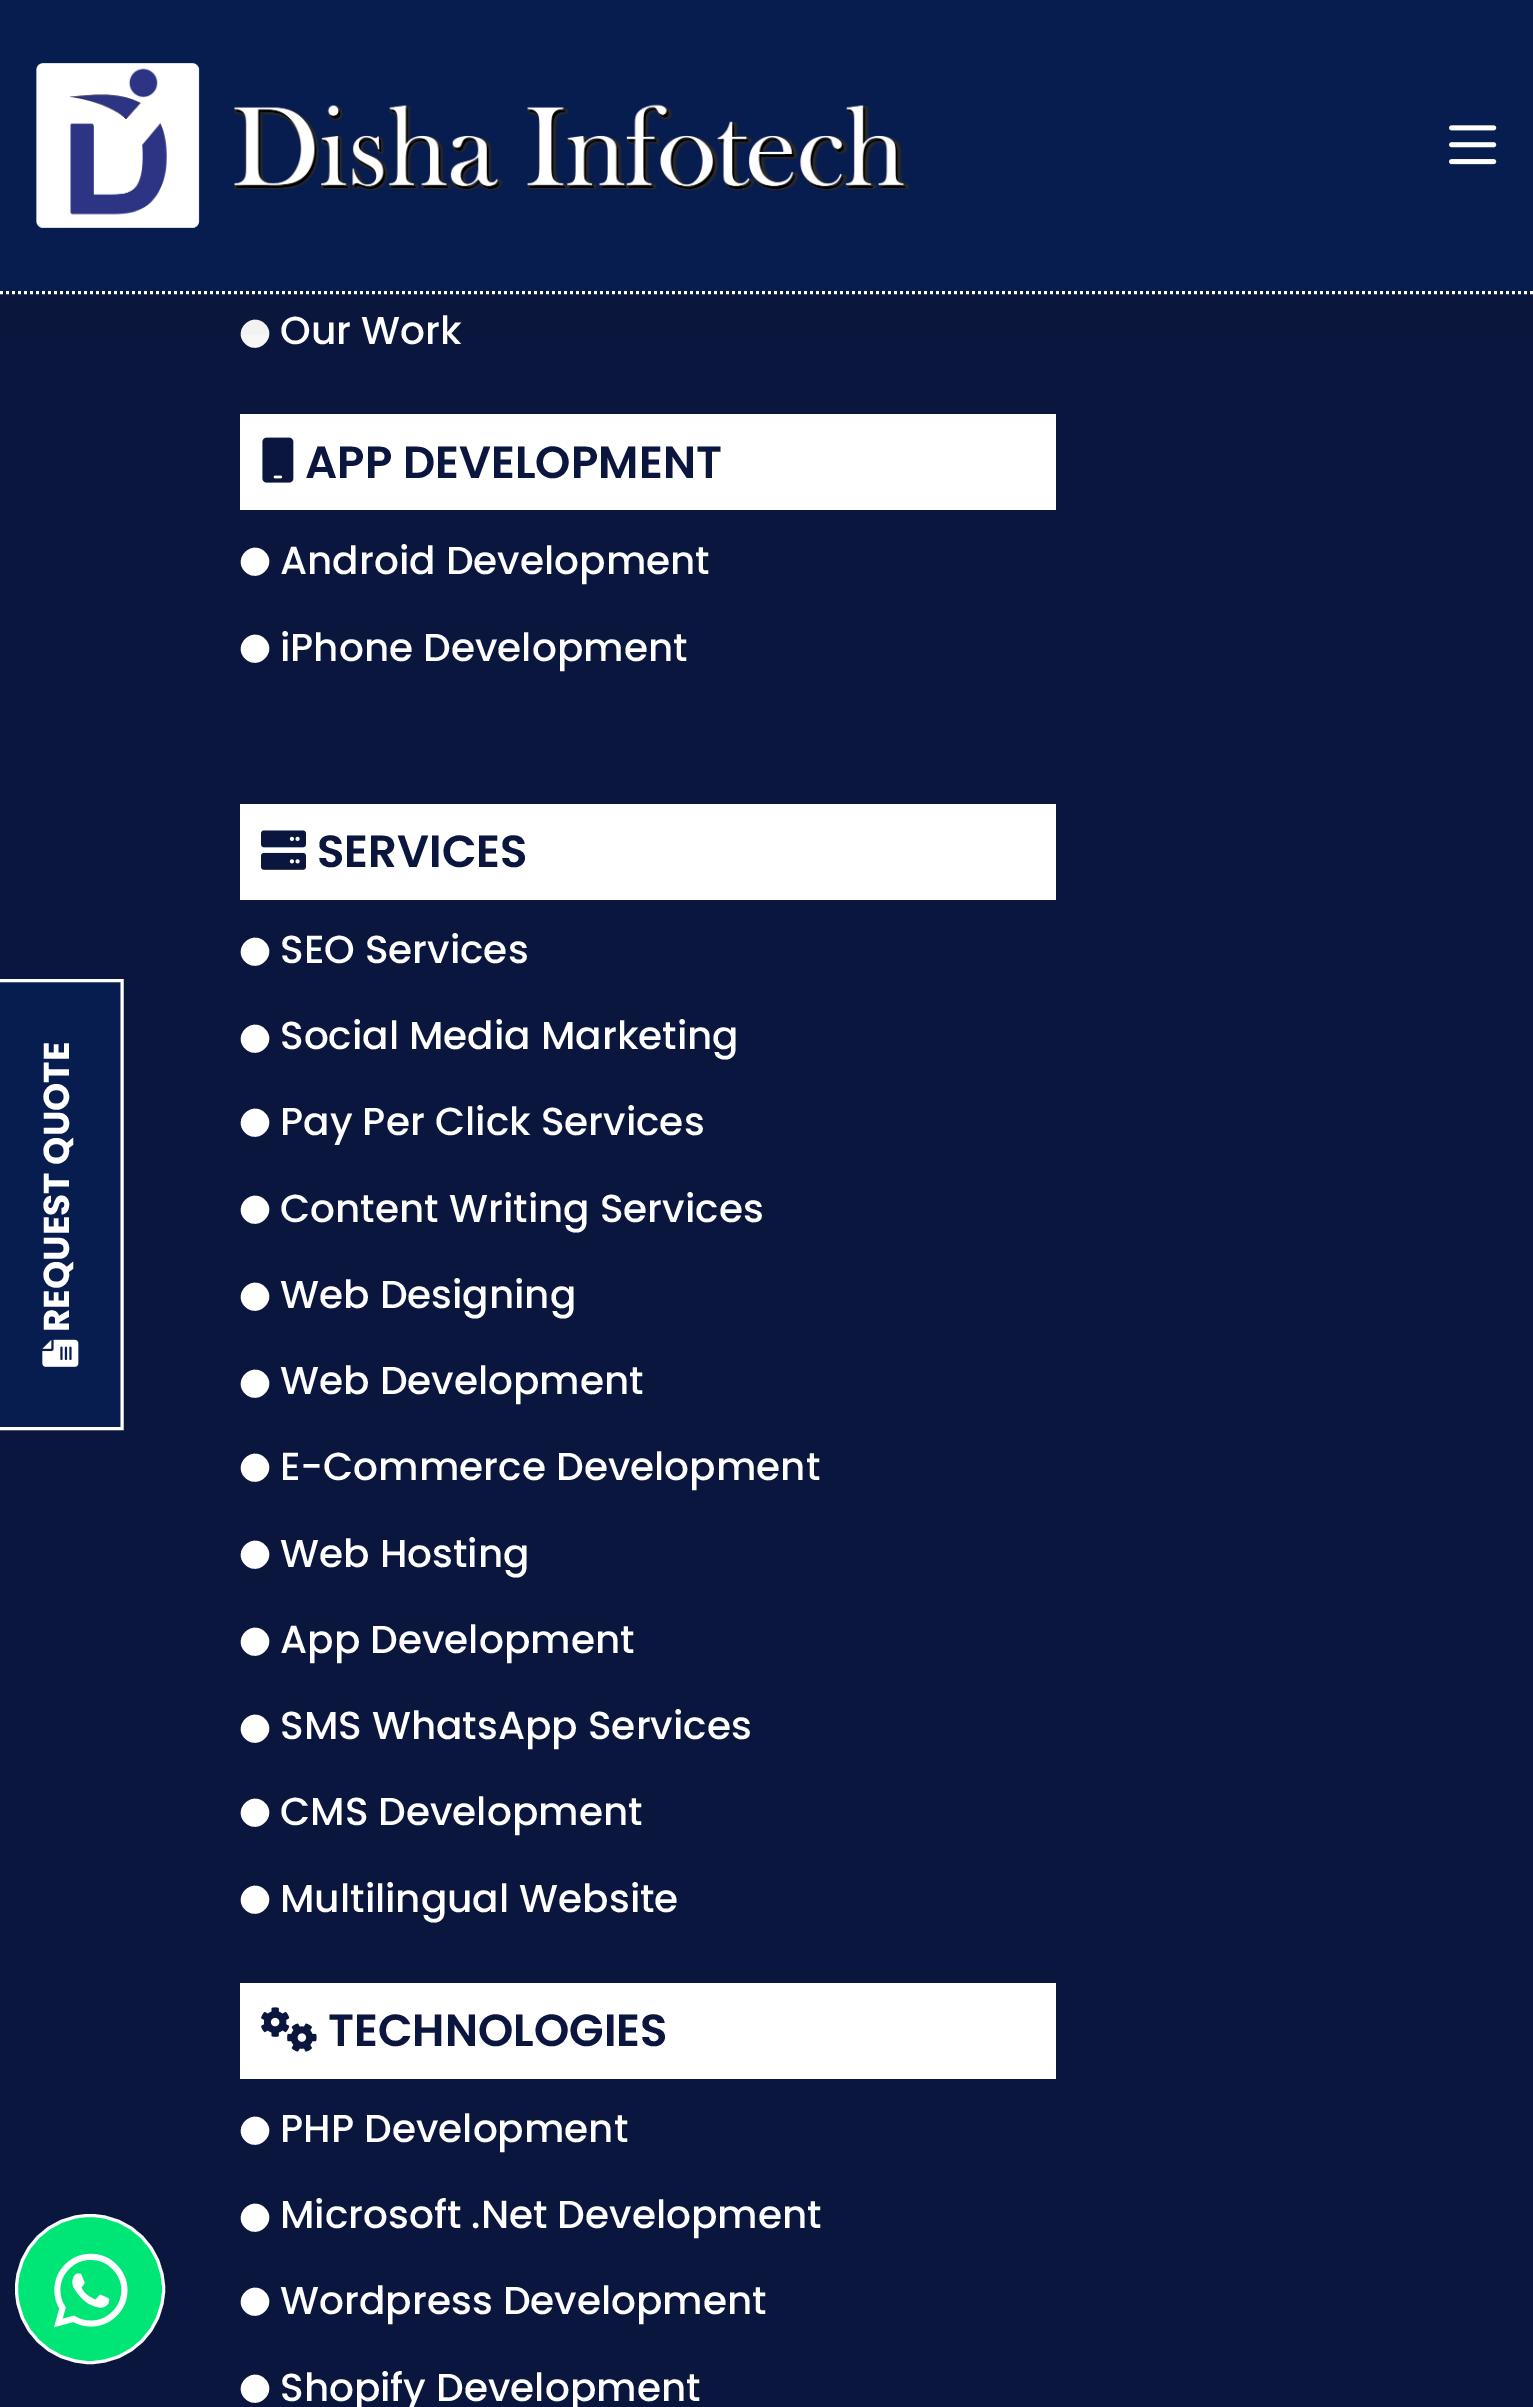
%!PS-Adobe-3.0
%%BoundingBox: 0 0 1533 2407
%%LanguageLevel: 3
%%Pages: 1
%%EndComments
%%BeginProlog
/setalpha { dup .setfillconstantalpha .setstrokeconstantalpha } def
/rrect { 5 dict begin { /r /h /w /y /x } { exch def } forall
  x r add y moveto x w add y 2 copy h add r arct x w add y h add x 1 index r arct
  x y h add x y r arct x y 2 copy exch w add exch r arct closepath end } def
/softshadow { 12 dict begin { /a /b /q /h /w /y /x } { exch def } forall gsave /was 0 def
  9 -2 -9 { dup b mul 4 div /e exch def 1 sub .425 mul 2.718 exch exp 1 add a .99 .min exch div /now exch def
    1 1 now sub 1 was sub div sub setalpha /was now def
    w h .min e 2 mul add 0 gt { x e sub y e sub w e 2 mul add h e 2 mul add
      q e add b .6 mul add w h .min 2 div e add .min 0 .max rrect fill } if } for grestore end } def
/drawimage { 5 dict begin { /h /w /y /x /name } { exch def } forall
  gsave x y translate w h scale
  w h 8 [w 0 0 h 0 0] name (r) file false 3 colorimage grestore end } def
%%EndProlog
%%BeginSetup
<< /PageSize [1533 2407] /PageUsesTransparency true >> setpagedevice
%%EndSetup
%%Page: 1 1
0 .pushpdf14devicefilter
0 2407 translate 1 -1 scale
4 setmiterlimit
0.043 0.086 0.247 setrgbcolor
0 0 1533 2407 rectfill
1 setgray
newpath 265 324 moveto 278 337 258 356.5 245 343.5 curveto 232 330.5 252 311 265 324 curveto closepath fill
240 414 816 96 rectfill
(images/4.raw) 262 437 32 46 drawimage
0 setgray
0 30 1533 294 0 45 0.1 softshadow
0.027 0.114 0.314 setrgbcolor
0 0 1533 294 rectfill
1 setgray
3 setlinewidth
[3 3] 0 setdash
newpath 0 292.5 moveto 1533 292.5 lineto stroke
(images/1.raw) 36 63 874 165 drawimage
(images/2.raw) 1449 125 48 40 drawimage
0.027 0.114 0.314 setrgbcolor
0 979 124 451 rectfill
1 setgray
[] 0 setdash
newpath -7.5 1428.5 moveto -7.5 980.5 lineto 122 980.5 lineto 122 1428.5 lineto closepath stroke
(images/3.raw) 42 1339 37 28 drawimage
newpath 265 552 moveto 278 565 258 584.5 245 571.5 curveto 232 558.5 252 539 265 552 curveto closepath fill
newpath 265 639 moveto 278 652 258 671.5 245 658.5 curveto 232 645.5 252 626 265 639 curveto closepath fill
240 804 816 96 rectfill
(images/5.raw) 261 830 45 40 drawimage
newpath 265 942 moveto 278 955 258 974.5 245 961.5 curveto 232 948.5 252 929 265 942 curveto closepath fill
newpath 265 1029 moveto 278 1042 258 1061.5 245 1048.5 curveto 232 1035.5 252 1016 265 1029 curveto closepath fill
newpath 265 1113 moveto 278 1126 258 1145.5 245 1132.5 curveto 232 1119.5 252 1100 265 1113 curveto closepath fill
newpath 265 1200 moveto 278 1213 258 1232.5 245 1219.5 curveto 232 1206.5 252 1187 265 1200 curveto closepath fill
newpath 265 1287 moveto 278 1300 258 1319.5 245 1306.5 curveto 232 1293.5 252 1274 265 1287 curveto closepath fill
newpath 265 1374 moveto 278 1387 258 1406.5 245 1393.5 curveto 232 1380.5 252 1361 265 1374 curveto closepath fill
newpath 265 1458 moveto 278 1471 258 1490.5 245 1477.5 curveto 232 1464.5 252 1445 265 1458 curveto closepath fill
newpath 265 1545 moveto 278 1558 258 1577.5 245 1564.5 curveto 232 1551.5 252 1532 265 1545 curveto closepath fill
newpath 265 1632 moveto 278 1645 258 1664.5 245 1651.5 curveto 232 1638.5 252 1619 265 1632 curveto closepath fill
newpath 265 1719 moveto 278 1732 258 1751.5 245 1738.5 curveto 232 1725.5 252 1706 265 1719 curveto closepath fill
newpath 265 1803 moveto 278 1816 258 1835.5 245 1822.5 curveto 232 1809.5 252 1790 265 1803 curveto closepath fill
newpath 265 1890 moveto 278 1903 258 1922.5 245 1909.5 curveto 232 1896.5 252 1877 265 1890 curveto closepath fill
240 1983 816 96 rectfill
(images/6.raw) 261 2007 56 45 drawimage
newpath 265 2121 moveto 278 2134 258 2153.5 245 2140.5 curveto 232 2127.5 252 2108 265 2121 curveto closepath fill
newpath 265 2208 moveto 278 2221 258 2240.5 245 2227.5 curveto 232 2214.5 252 2195 265 2208 curveto closepath fill
newpath 265 2292 moveto 278 2305 258 2324.5 245 2311.5 curveto 232 2298.5 252 2279 265 2292 curveto closepath fill
newpath 265 2379 moveto 278 2392 258 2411.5 245 2398.5 curveto 232 2385.5 252 2366 265 2379 curveto closepath fill
0 0.902 0.463 setrgbcolor
newpath 90 2289 73.5 0 360 arc closepath gsave fill grestore
1 setgray
stroke
(images/7.raw) 54 2253 74 75 drawimage
/Poppins-Bold [36 0 0 -36 0 0] selectfont
gsave 69 1332 translate -90 rotate 0 0 moveto (REQUEST QUOTE) show grestore
/Poppins-Medium [39 0 0 -39 0 0] selectfont
280 344 moveto (Our Work) show
/Poppins-SemiBold [45 0 0 -45 0 0] selectfont
0.043 0.086 0.247 setrgbcolor
305 478 moveto (APP DEVELOPMENT) show
/Poppins-Medium [39 0 0 -39 0 0] selectfont
1 setgray
280 574 moveto (Android Development) show
280 661 moveto (iPhone Development) show
/Poppins-SemiBold [45 0 0 -45 0 0] selectfont
0.043 0.086 0.247 setrgbcolor
317 867 moveto (SERVICES) show
/Poppins-Medium [39 0 0 -39 0 0] selectfont
1 setgray
280 963 moveto (SEO Services) show
280 1049 moveto (Social Media Marketing) show
280 1135 moveto (Pay Per Click Services) show
280 1222 moveto (Content Writing Services) show
280 1308 moveto (Web Designing) show
280 1394 moveto (Web Development) show
280 1480 moveto (E-Commerce Development) show
280 1567 moveto (Web Hosting) show
280 1653 moveto (App Development) show
280 1739 moveto (SMS WhatsApp Services) show
280 1825 moveto (CMS Development) show
280 1912 moveto (Multilingual Website) show
/Poppins-SemiBold [45 0 0 -45 0 0] selectfont
0.043 0.086 0.247 setrgbcolor
328 2046 moveto (TECHNOLOGIES) show
/Poppins-Medium [39 0 0 -39 0 0] selectfont
1 setgray
280 2142 moveto (PHP Development) show
280 2228 moveto (Microsoft .Net Development) show
280 2314 moveto (Wordpress Development) show
280 2401 moveto (Shopify Development) show
.poppdf14devicefilter showpage
%%EOF
